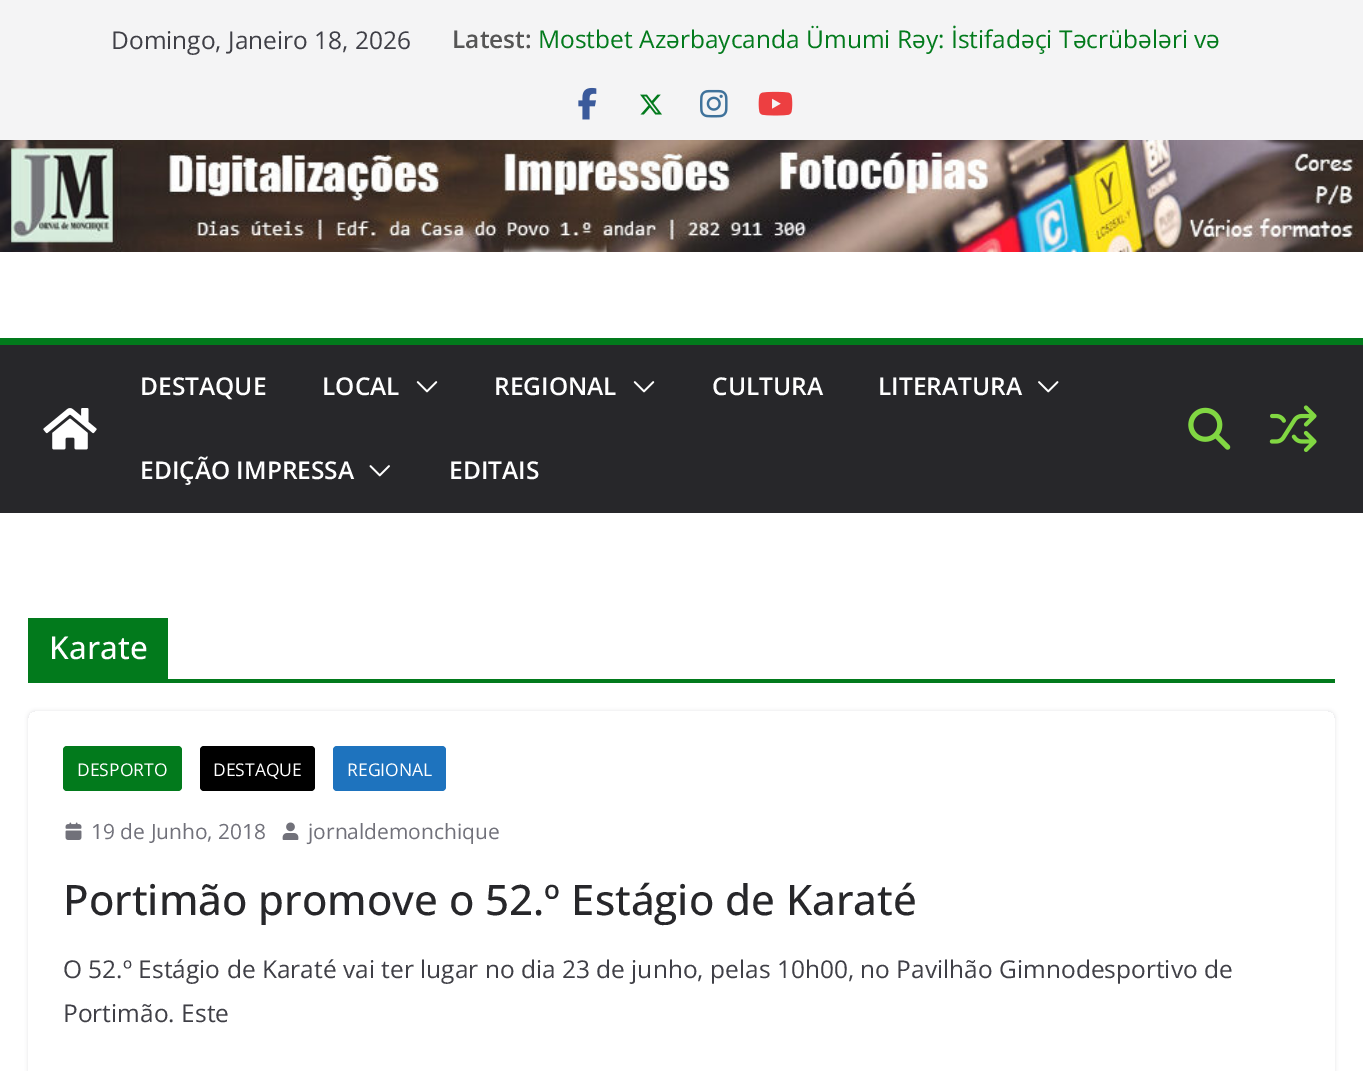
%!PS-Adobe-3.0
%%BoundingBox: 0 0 1363 1071
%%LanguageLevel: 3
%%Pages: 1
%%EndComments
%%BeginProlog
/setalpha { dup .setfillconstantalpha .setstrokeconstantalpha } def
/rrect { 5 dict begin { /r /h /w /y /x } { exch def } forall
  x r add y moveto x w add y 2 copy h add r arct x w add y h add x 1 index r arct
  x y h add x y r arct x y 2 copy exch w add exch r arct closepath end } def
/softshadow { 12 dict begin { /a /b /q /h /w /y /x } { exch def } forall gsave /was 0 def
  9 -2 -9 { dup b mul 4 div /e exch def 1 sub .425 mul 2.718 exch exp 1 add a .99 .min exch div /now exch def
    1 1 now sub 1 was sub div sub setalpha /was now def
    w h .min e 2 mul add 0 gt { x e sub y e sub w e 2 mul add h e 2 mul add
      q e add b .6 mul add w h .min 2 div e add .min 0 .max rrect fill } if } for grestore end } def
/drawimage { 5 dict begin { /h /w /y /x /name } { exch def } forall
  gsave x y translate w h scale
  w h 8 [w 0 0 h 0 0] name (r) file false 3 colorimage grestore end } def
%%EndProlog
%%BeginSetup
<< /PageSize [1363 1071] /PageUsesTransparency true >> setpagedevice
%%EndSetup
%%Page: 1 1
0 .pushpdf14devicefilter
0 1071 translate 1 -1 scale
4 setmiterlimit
1 setgray
0 0 1363 1071 rectfill
0.957 0.957 0.961 setrgbcolor
0 0 1363 140 rectfill
(images/1.raw) 578 87 19 33 drawimage
(images/2.raw) 640 94 22 21 drawimage
(images/3.raw) 700 89 28 29 drawimage
(images/4.raw) 758 91 35 25 drawimage
(images/5.raw) 0 140 1363 112 drawimage
0.153 0.153 0.165 setrgbcolor
0 345 1363 168 rectfill
0.008 0.478 0.11 setrgbcolor
0 338 1363 7 rectfill
(images/6.raw) 43 408 54 42 drawimage
(images/7.raw) 416 381 22 12 drawimage
(images/7.raw) 633 381 22 12 drawimage
(images/8.raw) 1038 381 21 12 drawimage
(images/9.raw) 369 465 21 12 drawimage
(images/10.raw) 1188 407 43 43 drawimage
(images/11.raw) 1269 405 48 47 drawimage
28 679 1307 4 rectfill
28 618 140 61 rectfill
gsave
newpath 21 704 moveto 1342 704 lineto 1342 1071 lineto 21 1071 lineto closepath 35 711 moveto 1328 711 lineto 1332 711 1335 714 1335 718 curveto 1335 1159 lineto 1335 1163 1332 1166 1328 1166 curveto 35 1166 lineto 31 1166 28 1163 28 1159 curveto 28 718 lineto 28 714 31 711 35 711 curveto closepath eoclip newpath
0.894 0.894 0.906 setrgbcolor
28 711 1307 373 7 2 1 softshadow
grestore
63 746 119 45 4 rrect fill
0 setgray
200 746 115 45 4 rrect fill
0.118 0.451 0.745 setrgbcolor
333 746 113 45 4 rrect fill
(images/12.raw) 65 822 17 18 drawimage
(images/13.raw) 282 822 17 18 drawimage
/OpenSans-Regular [24.5 0 0 -24.5 0 0] selectfont
0.247 0.247 0.275 setrgbcolor
111 49 moveto (Domingo, Janeiro 18, 2026) show
/OpenSans-SemiBold [24.5 0 0 -24.5 0 0] selectfont
0.333 setgray
452 48 moveto (Latest:) show
/OpenSans-Regular [24.5 0 0 -24.5 0 0] selectfont
0.008 0.478 0.11 setrgbcolor
538 48 moveto (Mostbet Azərbaycanda Ümumi Rəy: İstifadəçi Təcrübələri və) show
/OpenSans-SemiBold [24.5 0 0 -24.5 0 0] selectfont
1 setgray
140 395 moveto (DESTAQUE) show
322 395 moveto (LOCAL) show
494 395 moveto (REGIONAL) show
712 395 moveto (CULTURA) show
878 395 moveto (LITERATURA) show
140 479 moveto (EDIÇÃO IMPRESSA) show
449 479 moveto (EDITAIS) show
/OpenSans-Medium [31.5 0 0 -31.5 0 0] selectfont
49 659 moveto (Karate) show
/OpenSans-Regular [17.5 0 0 -17.5 0 0] selectfont
77 776 moveto (DESPORTO) show
213 776 moveto (DESTAQUE) show
347 776 moveto (REGIONAL) show
/OpenSans-Regular [21 0 0 -21 0 0] selectfont
0.443 0.443 0.478 setrgbcolor
91 839 moveto (19 de Junho, 2018) show
308 839 moveto (jornaldemonchique) show
/OpenSans-Medium [42 0 0 -42 0 0] selectfont
0.153 0.153 0.165 setrgbcolor
63 915 moveto (Portimão promove o 52.º Estágio de Karaté) show
/OpenSans-Regular [24.5 0 0 -24.5 0 0] selectfont
0.247 0.247 0.275 setrgbcolor
63 978 moveto (O 52.º Estágio de Karaté vai ter lugar no dia 23 de junho, pelas 10h00, no Pavilhão Gimnodesportivo de) show
63 1022 moveto (Portimão. Este) show
.poppdf14devicefilter showpage
%%EOF
